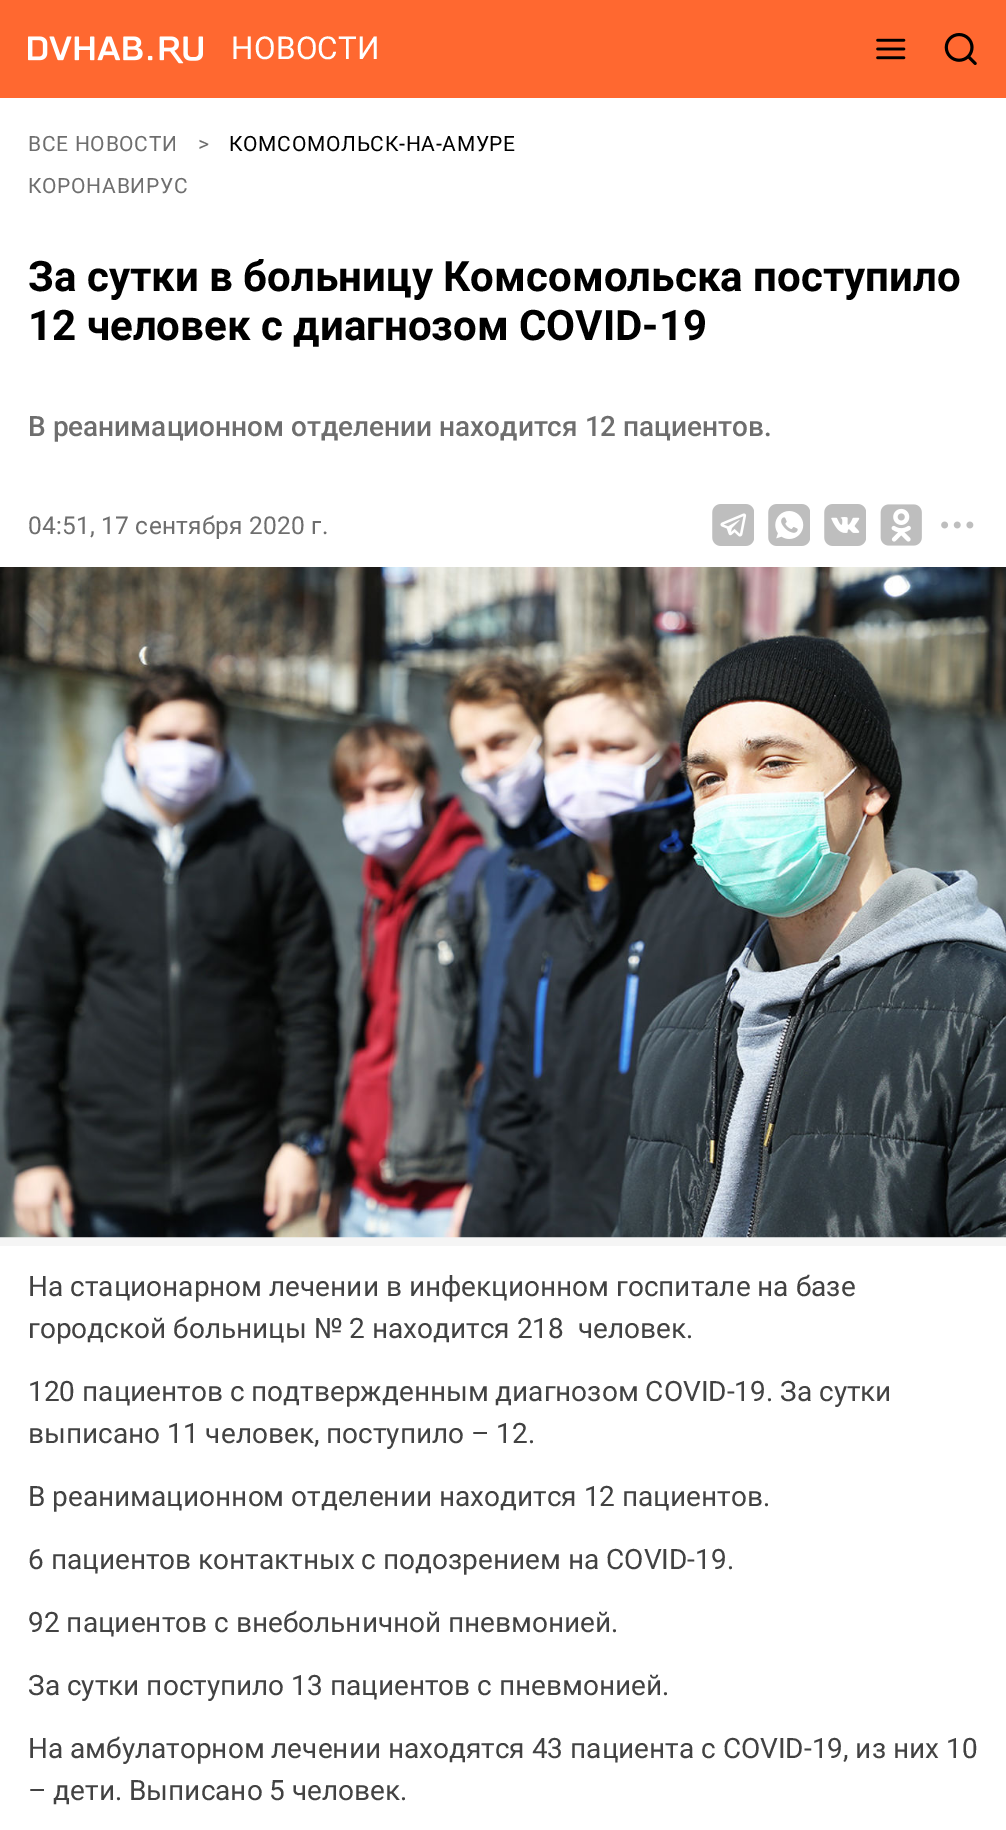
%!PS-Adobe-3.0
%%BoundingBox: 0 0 1006 1830
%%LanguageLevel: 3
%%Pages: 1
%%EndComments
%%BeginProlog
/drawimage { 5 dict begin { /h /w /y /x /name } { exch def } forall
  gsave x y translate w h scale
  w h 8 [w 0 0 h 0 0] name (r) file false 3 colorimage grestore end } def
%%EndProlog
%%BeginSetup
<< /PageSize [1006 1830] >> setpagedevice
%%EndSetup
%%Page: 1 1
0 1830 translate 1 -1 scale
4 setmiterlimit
1 0.408 0.188 setrgbcolor
0 0 1006 1830 rectfill
(images/1.raw) 28 36 175 28 drawimage
(images/2.raw) 876 38 30 22 drawimage
(images/3.raw) 944 33 33 32 drawimage
1 setgray
0 98 1006 1732 rectfill
(images/4.raw) 712 504 42 42 drawimage
(images/5.raw) 768 504 42 42 drawimage
(images/6.raw) 824 504 42 42 drawimage
(images/7.raw) 880 504 42 42 drawimage
(images/8.raw) 941 521 33 8 drawimage
0.961 setgray
0 1237 1006 9 rectfill
(images/9.raw) 0 567 1006 671 drawimage
/Roboto-Regular [31.5 0 0 -31.5 0 0] selectfont
1 setgray
231 59 moveto 0.25 0 (НОВОСТИ) ashow
/Roboto-Regular [21 0 0 -21 0 0] selectfont
0.431 setgray
28 151 moveto 0.7 0 (ВСЕ НОВОСТИ) ashow
198 151 moveto 0.7 0 (>) ashow
0 setgray
229 151 moveto 0.7 0 (КОМСОМОЛЬСК-НА-АМУРЕ) ashow
0.431 setgray
28 193 moveto 0.7 0 (КОРОНАВИРУС) ashow
/Roboto-Bold [42 0 0 -42 0 0] selectfont
0 setgray
28 291 moveto (За сутки в больницу Комсомольска поступило) show
28 340 moveto (12 человек с диагнозом COVID-19) show
/Roboto-Medium [28 0 0 -28 0 0] selectfont
0.431 setgray
28 436 moveto (В реанимационном отделении находится 12 пациентов.) show
/Roboto-Regular [24.5 0 0 -24.5 0 0] selectfont
28 534 moveto 0.2 0 (04:51, 17 сентября 2020 г.) ashow
/Roboto-Regular [28 0 0 -28 0 0] selectfont
0.259 setgray
28 1296 moveto (На стационарном лечении в инфекционном госпитале на базе) show
28 1338 moveto (городской больницы № 2 находится 218  человек.) show
28 1401 moveto (120 пациентов с подтвержденным диагнозом COVID-19. За сутки) show
28 1443 moveto (выписано 11 человек, поступило – 12.) show
28 1506 moveto (В реанимационном отделении находится 12 пациентов.) show
28 1569 moveto (6 пациентов контактных с подозрением на COVID-19.) show
28 1632 moveto (92 пациентов с внебольничной пневмонией.) show
28 1695 moveto (За сутки поступило 13 пациентов с пневмонией.) show
28 1758 moveto (На амбулаторном лечении находятся 43 пациента с COVID-19, из них 10) show
28 1800 moveto (– дети. Выписано 5 человек.) show
showpage
%%EOF
